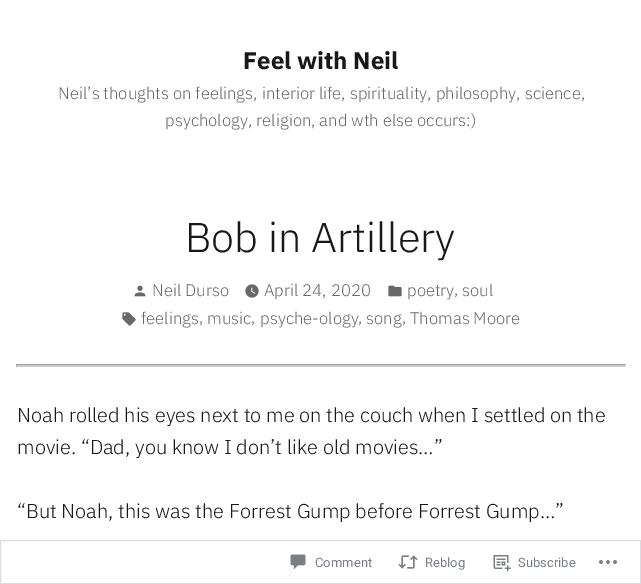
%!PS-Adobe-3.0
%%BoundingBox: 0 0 641 584
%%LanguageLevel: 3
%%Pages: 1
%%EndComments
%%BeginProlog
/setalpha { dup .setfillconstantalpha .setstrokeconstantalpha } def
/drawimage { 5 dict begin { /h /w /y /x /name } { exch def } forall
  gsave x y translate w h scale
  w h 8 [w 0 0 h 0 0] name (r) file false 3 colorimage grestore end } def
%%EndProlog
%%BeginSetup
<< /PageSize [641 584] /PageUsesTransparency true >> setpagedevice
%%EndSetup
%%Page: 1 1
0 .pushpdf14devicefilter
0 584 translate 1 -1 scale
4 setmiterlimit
1 setgray
0 0 641 584 rectfill
(images/1.raw) 134 285 12 12 drawimage
(images/2.raw) 245 284 14 14 drawimage
(images/3.raw) 388 285 14 12 drawimage
(images/4.raw) 122 312 14 14 drawimage
0.624 setgray
16 364 610 1 rectfill
0.933 setgray
newpath 626 364 moveto 626 367 lineto 625 365 lineto closepath fill
0.8 setgray
newpath 626 367 moveto 16 367 lineto 17 365 lineto 625 365 lineto closepath fill
0.624 setgray
newpath 16 367 moveto 16 364 lineto 17 365 lineto closepath fill
0.98 setalpha
0.863 0.863 0.871 setrgbcolor
0.5 540.5 640 43 rectstroke
1 setalpha
(images/5.raw) 290 554 16 16 drawimage
(images/6.raw) 398 555 20 14 drawimage
(images/7.raw) 493 555 18 17 drawimage
(images/8.raw) 599 560 18 4 drawimage
/IBMPlexSans-Bold [24 0 0 -24 0 0] selectfont
0.094 setgray
243 69 moveto (Feel with Neil) show
/IBMPlexSans-Light [16.7 0 0 -16.7 0 0] selectfont
0.408 setgray
58 99 moveto (Neil’s thoughts on feelings, interior life, spirituality, philosophy, science,) show
165 126 moveto (psychology, religion, and wth else occurs:\)) show
/IBMPlexSans-Light [41.5 0 0 -41.5 0 0] selectfont
0.094 setgray
185 252 moveto (Bob in Artillery) show
/IBMPlexSans-Light [16.7 0 0 -16.7 0 0] selectfont
0.408 setgray
152 296 moveto (Neil Durso) show
264 296 moveto (April 24, 2020) show
407 296 moveto (poetry) show
454 295 moveto (,) show
462 296 moveto (soul) show
141 324 moveto (feelings) show
199 323 moveto (,) show
207 324 moveto (music) show
251 323 moveto (,) show
260 324 moveto (psyche-ology) show
358 323 moveto (,) show
366 324 moveto (song) show
402 323 moveto (,) show
410 324 moveto (Thomas Moore) show
/IBMPlexSans-Light [20 0 0 -20 0 0] selectfont
0.094 setgray
17 422 moveto (Noah rolled his eyes next to me on the couch when I settled on the) show
17 454 moveto (movie. “Dad, you know I don’t like old movies…”) show
17 518 moveto (“But Noah, this was the Forrest Gump before Forrest Gump…”) show
/Roboto-Regular [13 0 0 -13 0 0] selectfont
0.482 0.498 0.522 setrgbcolor
315 567 moveto (Comment) show
425 567 moveto (Reblog) show
518 567 moveto (Subscribe) show
.poppdf14devicefilter showpage
%%EOF
